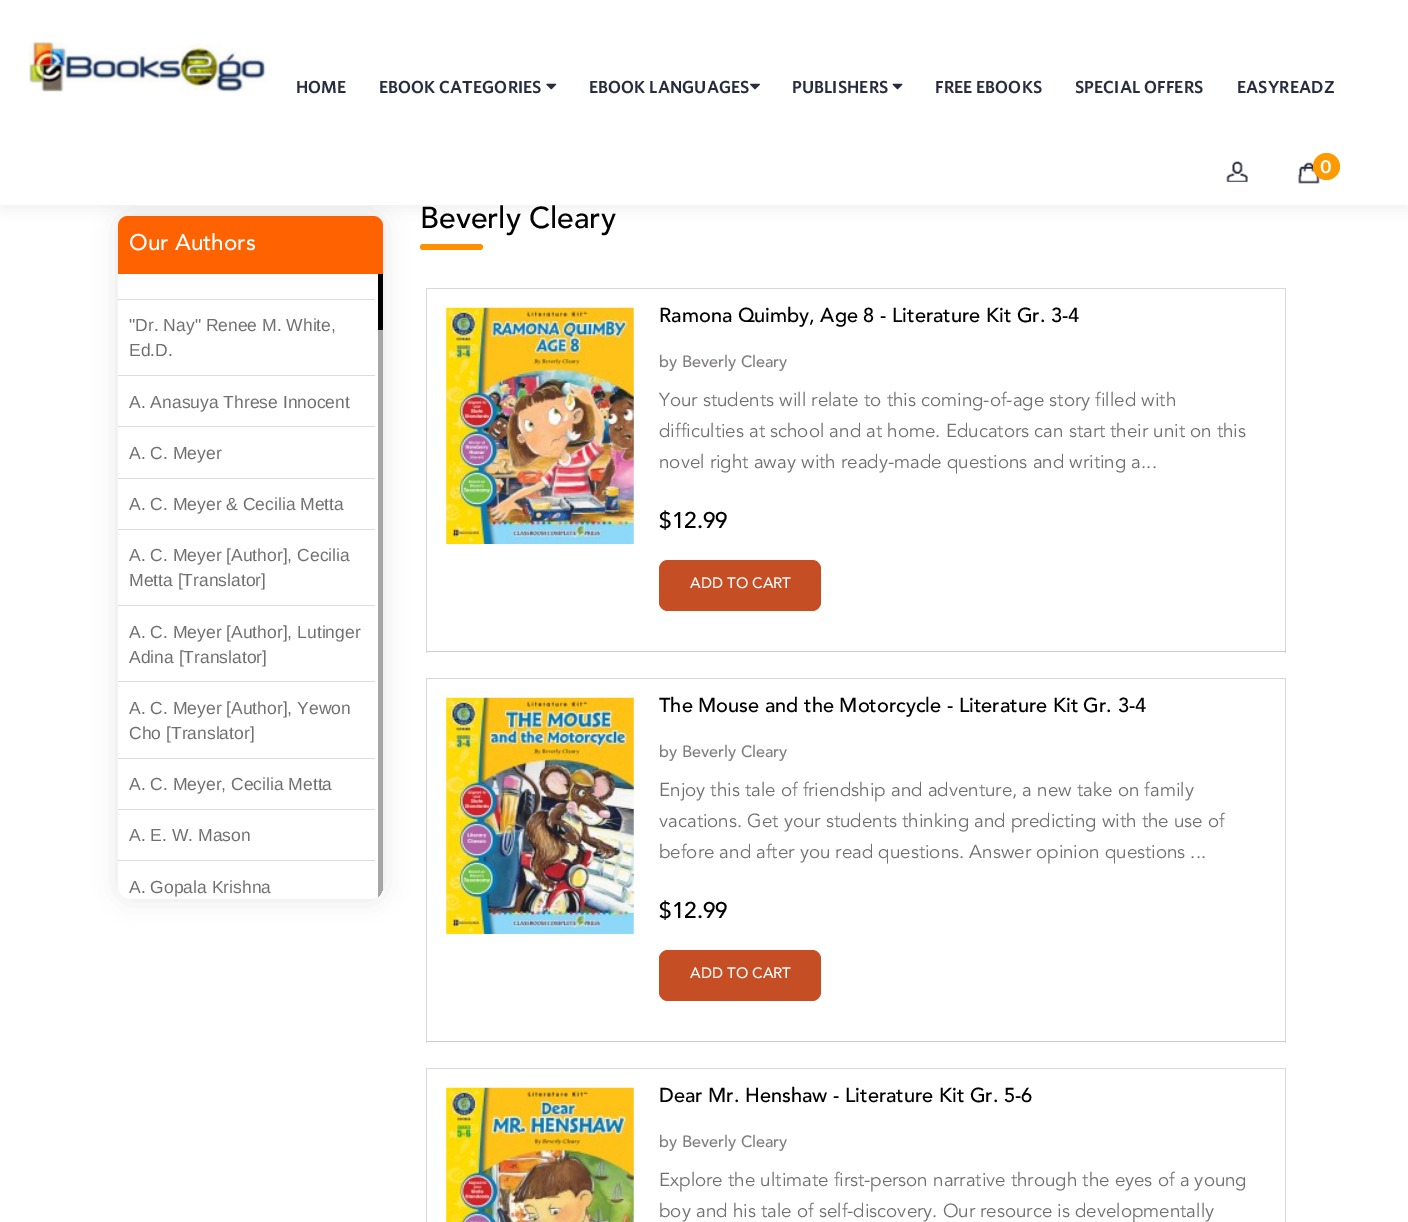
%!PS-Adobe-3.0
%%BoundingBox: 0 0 1408 1222
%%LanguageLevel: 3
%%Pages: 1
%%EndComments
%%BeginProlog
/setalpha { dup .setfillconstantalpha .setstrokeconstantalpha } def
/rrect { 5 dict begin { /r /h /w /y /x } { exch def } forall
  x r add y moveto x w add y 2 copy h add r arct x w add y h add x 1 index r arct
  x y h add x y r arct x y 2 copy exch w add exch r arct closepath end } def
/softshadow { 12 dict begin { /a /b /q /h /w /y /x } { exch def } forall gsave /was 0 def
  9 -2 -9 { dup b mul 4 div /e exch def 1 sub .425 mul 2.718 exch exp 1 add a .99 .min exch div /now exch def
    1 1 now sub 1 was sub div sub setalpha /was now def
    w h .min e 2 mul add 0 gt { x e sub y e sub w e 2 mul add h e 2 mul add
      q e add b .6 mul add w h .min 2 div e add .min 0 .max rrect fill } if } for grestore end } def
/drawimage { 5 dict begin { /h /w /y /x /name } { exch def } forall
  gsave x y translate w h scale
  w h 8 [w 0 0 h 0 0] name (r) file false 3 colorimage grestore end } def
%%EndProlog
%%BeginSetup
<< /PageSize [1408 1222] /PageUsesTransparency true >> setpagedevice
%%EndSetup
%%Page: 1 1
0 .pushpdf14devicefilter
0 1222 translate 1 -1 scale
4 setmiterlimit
1 setgray
0 0 1408 1222 rectfill
0.545 setgray
118 216 265 683 13 12.5 0.2 softshadow
1 setgray
118 216 265 683 13 rrect fill
1 0.384 0 setrgbcolor
newpath 128 216 moveto 373 216 lineto 378.5 216 383 220.5 383 226 curveto 383 274 lineto 118 274 lineto 118 226 lineto 118 220.5 122.5 216 128 216 curveto closepath fill
0 setgray
0 5 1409 205 0 7.5 0.05 softshadow
1 setgray
0 0 1408 205 rectfill
(images/1.raw) 29 42 237 50 drawimage
(images/2.raw) 546 83 11 7 drawimage
(images/3.raw) 750 83 10 7 drawimage
(images/4.raw) 892 83 11 7 drawimage
(images/5.raw) 1226 161 22 21 drawimage
(images/6.raw) 1298 162 22 22 drawimage
1 0.6 0 setrgbcolor
newpath 1326.5 166.5 13.5 0 360 arc closepath fill
0.867 setgray
118 299 257 1 rectfill
118 375 257 1 rectfill
118 426 257 1 rectfill
118 478 257 1 rectfill
118 529 257 1 rectfill
118 605 257 1 rectfill
118 681 257 1 rectfill
118 758 257 1 rectfill
118 809 257 1 rectfill
118 860 257 1 rectfill
gsave
newpath 118 274 moveto 383 274 lineto 383 886 lineto 383 893 377 899 370 899 curveto 131 899 lineto 124 899 118 893 118 886 curveto closepath clip newpath
0.651 setgray
378 330 5 569 rectfill
grestore
0 setgray
378 274 5 56 rectfill
1 0.565 0 setrgbcolor
420 244 63 6 3 rrect fill
0.847 setgray
426 288 860 1 rectfill
1285 288 1 365 rectfill
0.8 setgray
426 651 860 1 rectfill
0.847 setgray
426 288 1 365 rectfill
(images/7.raw) 446 307 188 237 drawimage
0.776 0.306 0.141 setrgbcolor
659 560 162 51 9 rrect fill
0.847 setgray
426 678 860 1 rectfill
1285 678 1 365 rectfill
0.8 setgray
426 1041 860 1 rectfill
0.847 setgray
426 678 1 365 rectfill
(images/8.raw) 446 697 188 237 drawimage
0.776 0.306 0.141 setrgbcolor
659 950 162 51 9 rrect fill
0.847 setgray
426 1068 860 1 rectfill
1285 1068 1 154 rectfill
426 1068 1 154 rectfill
(images/9.raw) 446 1087 188 135 drawimage
/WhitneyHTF-SemiBold [17.5 0 0 -17.5 0 0] selectfont
0.157 0.173 0.247 setrgbcolor
296 93 moveto 0.1 0 (HOME) ashow
379 93 moveto 0.1 0 (EBOOK CATEGORIES) ashow
589 93 moveto 0.1 0 (EBOOK LANGUAGES) ashow
792 93 moveto 0.1 0 (PUBLISHERS) ashow
935 93 moveto 0.1 0 (FREE EBOOKS) ashow
1075 93 moveto 0.1 0 (SPECIAL OFFERS) ashow
1237 93 moveto 0.1 0 (EASYREADZ) ashow
/WhitneyHTF-SemiBold [18.75 0 0 -18.75 0 0] selectfont
1 setgray
1320 173 moveto (0) show
/Avenir-Medium [22.5 0 0 -22.5 0 0] selectfont
129 250 moveto (Our Authors) show
/LiberationSans-Regular [17.5 0 0 -17.5 0 0] selectfont
0.443 0.439 0.439 setrgbcolor
129 331 moveto ("Dr. Nay" Renee M. White,) show
129 356 moveto (Ed.D.) show
129 408 moveto (A. Anasuya Threse Innocent) show
129 459 moveto (A. C. Meyer) show
129 510 moveto (A. C. Meyer & Cecilia Metta) show
129 561 moveto (A. C. Meyer [Author], Cecilia) show
129 586 moveto (Metta [Translator]) show
129 638 moveto (A. C. Meyer [Author], Lutinger) show
129 663 moveto (Adina [Translator]) show
129 714 moveto (A. C. Meyer [Author], Yewon) show
129 739 moveto (Cho [Translator]) show
129 790 moveto (A. C. Meyer, Cecilia Metta) show
129 841 moveto (A. E. W. Mason) show
129 893 moveto (A. Gopala Krishna) show
/Avenir-Medium [30 0 0 -30 0 0] selectfont
0 setgray
420 228 moveto (Beverly Cleary) show
/Avenir-Medium [20 0 0 -20 0 0] selectfont
659 322 moveto (Ramona Quimby, Age 8 - Literature Kit Gr. 3-4) show
/Avenir-Medium [16.25 0 0 -16.25 0 0] selectfont
0.506 0.494 0.494 setrgbcolor
659 367 moveto (by Beverly Cleary) show
/Avenir-Regular [18.75 0 0 -18.75 0 0] selectfont
0.443 0.439 0.439 setrgbcolor
659 406 moveto (Your students will relate to this coming-of-age story filled with) show
659 437 moveto (difficulties at school and at home. Educators can start their unit on this) show
659 468 moveto (novel right away with ready-made questions and writing a...) show
/Avenir-Medium [22.5 0 0 -22.5 0 0] selectfont
0 setgray
659 528 moveto ($12.99) show
/Avenir-Medium [15 0 0 -15 0 0] selectfont
1 setgray
690 588 moveto (ADD TO CART) show
/Avenir-Medium [20 0 0 -20 0 0] selectfont
0 setgray
659 712 moveto (The Mouse and the Motorcycle - Literature Kit Gr. 3-4) show
/Avenir-Medium [16.25 0 0 -16.25 0 0] selectfont
0.506 0.494 0.494 setrgbcolor
659 757 moveto (by Beverly Cleary) show
/Avenir-Regular [18.75 0 0 -18.75 0 0] selectfont
0.443 0.439 0.439 setrgbcolor
659 796 moveto (Enjoy this tale of friendship and adventure, a new take on family) show
659 827 moveto (vacations. Get your students thinking and predicting with the use of) show
659 858 moveto (before and after you read questions. Answer opinion questions ...) show
/Avenir-Medium [22.5 0 0 -22.5 0 0] selectfont
0 setgray
659 918 moveto ($12.99) show
/Avenir-Medium [15 0 0 -15 0 0] selectfont
1 setgray
690 978 moveto (ADD TO CART) show
/Avenir-Medium [20 0 0 -20 0 0] selectfont
0 setgray
659 1102 moveto (Dear Mr. Henshaw - Literature Kit Gr. 5-6) show
/Avenir-Medium [16.25 0 0 -16.25 0 0] selectfont
0.506 0.494 0.494 setrgbcolor
659 1147 moveto (by Beverly Cleary) show
/Avenir-Regular [18.75 0 0 -18.75 0 0] selectfont
0.443 0.439 0.439 setrgbcolor
659 1186 moveto (Explore the ultimate first-person narrative through the eyes of a young) show
659 1217 moveto (boy and his tale of self-discovery. Our resource is developmentally) show
.poppdf14devicefilter showpage
%%EOF
